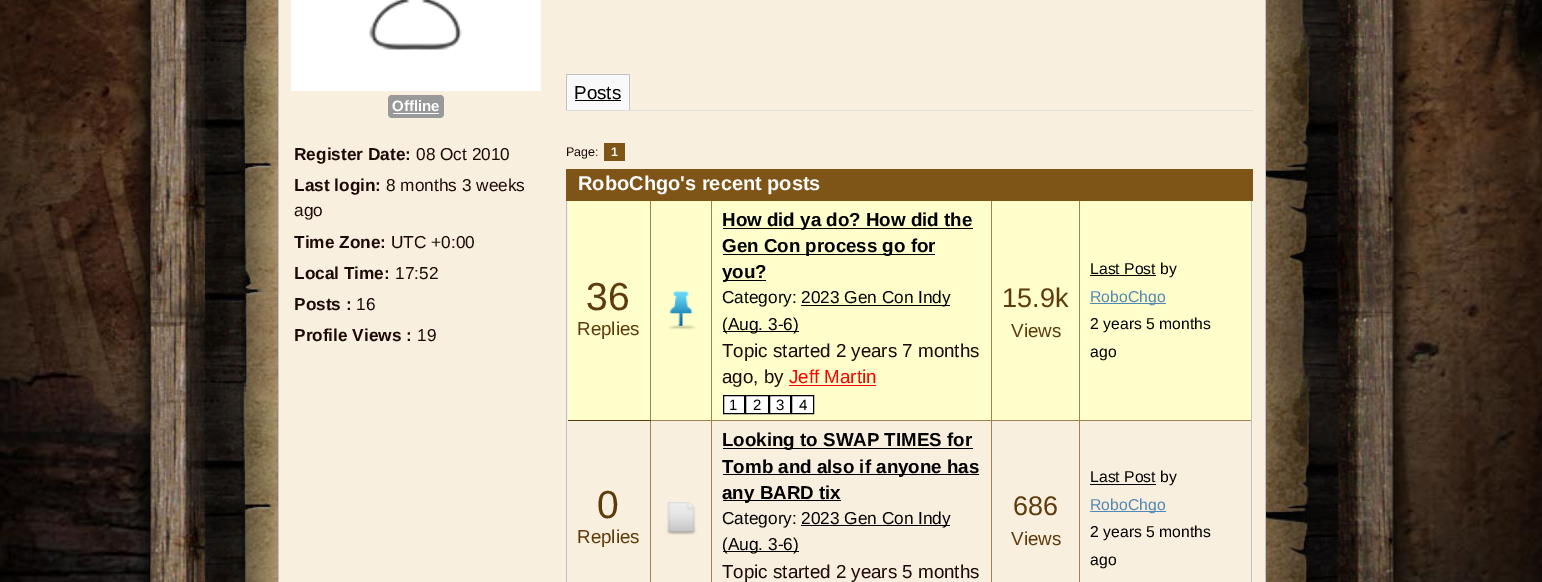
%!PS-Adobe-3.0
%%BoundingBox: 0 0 1542 582
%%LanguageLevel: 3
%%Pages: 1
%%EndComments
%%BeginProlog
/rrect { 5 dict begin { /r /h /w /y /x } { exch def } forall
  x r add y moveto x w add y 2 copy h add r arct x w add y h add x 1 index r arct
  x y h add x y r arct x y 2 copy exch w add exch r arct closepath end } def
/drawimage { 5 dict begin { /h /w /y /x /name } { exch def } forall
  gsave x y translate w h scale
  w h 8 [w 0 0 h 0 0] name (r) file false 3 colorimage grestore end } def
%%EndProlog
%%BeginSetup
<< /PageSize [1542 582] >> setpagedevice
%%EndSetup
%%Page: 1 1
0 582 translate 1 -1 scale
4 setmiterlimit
1 setgray
0 0 1542 582 rectfill
(images/1.raw) 0 0 1542 582 drawimage
(images/2.raw) 150 0 1244 582 drawimage
0.976 0.937 0.871 setrgbcolor
279 0 986 582 rectfill
0.749 0.765 0.776 setrgbcolor
1265 0 1 582 rectfill
278 0 1 582 rectfill
1 setgray
291 0 250 91 rectfill
(images/3.raw) 369 0 93 50 drawimage
0.6 setgray
388 95 56 23 4 rrect fill
1 setgray
393 113 46 1 rectfill
0.867 setgray
566 110 687 1 rectfill
0.976 setgray
567 75 62 35 rectfill
0.749 0.765 0.776 setrgbcolor
566 74 64 1 rectfill
629 74 1 36 rectfill
566 74 1 36 rectfill
0 setgray
575 100 46 1 rectfill
0.498 0.329 0.09 setrgbcolor
604 143 21 18 rectfill
566 169 687 32 rectfill
0.749 0.765 0.776 setrgbcolor
1251 201 1 381 rectfill
566 201 1 381 rectfill
1 1 0.8 setrgbcolor
568 201 683 219 rectfill
0.624 0.51 0.31 setrgbcolor
1079 420 1 162 rectfill
1079 420 172 1 rectfill
1079 201 1 220 rectfill
991 420 1 162 rectfill
991 420 89 1 rectfill
991 201 1 220 rectfill
711 420 1 162 rectfill
711 420 282 1 rectfill
711 201 1 220 rectfill
650 420 1 162 rectfill
650 420 63 1 rectfill
650 201 1 220 rectfill
0.369 0.231 0.043 setrgbcolor
568 420 83 1 rectfill
(images/4.raw) 668 290 28 40 drawimage
0 setgray
723 228 250 1 rectfill
723 254 212 1 rectfill
723 280 43 1 rectfill
801 305 149 1 rectfill
723 331 76 1 rectfill
1 0 0 setrgbcolor
789 385 87 1 rectfill
1 setgray
newpath 723.5 395.5 moveto 744.5 395.5 lineto 744.5 413.5 lineto 723.5 413.5 lineto closepath gsave fill grestore
0 setgray
stroke
1 setgray
newpath 745.5 395.5 moveto 768.5 395.5 lineto 768.5 413.5 lineto 745.5 413.5 lineto closepath gsave fill grestore
0 setgray
stroke
1 setgray
newpath 769.5 395.5 moveto 790.5 395.5 lineto 790.5 413.5 lineto 769.5 413.5 lineto closepath gsave fill grestore
0 setgray
stroke
1 setgray
newpath 791.5 395.5 moveto 813.5 395.5 lineto 813.5 413.5 lineto 791.5 413.5 lineto closepath gsave fill grestore
0 setgray
stroke
1090 275 66 1 rectfill
0.325 0.533 0.706 setrgbcolor
1090 303 76 1 rectfill
(images/5.raw) 666 502 31 33 drawimage
0 setgray
723 448 250 1 rectfill
723 474 256 1 rectfill
723 500 118 1 rectfill
801 525 149 1 rectfill
723 551 76 1 rectfill
1090 484 66 1 rectfill
0.325 0.533 0.706 setrgbcolor
1090 511 76 1 rectfill
/LiberationSans-Bold [15 0 0 -15 0 0] selectfont
1 setgray
392 111 moveto (Offline) show
/LiberationSans-Bold [17.25 0 0 -17.25 0 0] selectfont
0.114 0.035 0.024 setrgbcolor
294 160 moveto (Register Date:) show
/LiberationSans-Regular [17.25 0 0 -17.25 0 0] selectfont
416 160 moveto (08 Oct 2010) show
/LiberationSans-Bold [17.25 0 0 -17.25 0 0] selectfont
294 191 moveto (Last login:) show
/LiberationSans-Regular [17.25 0 0 -17.25 0 0] selectfont
386 191 moveto (8 months 3 weeks) show
294 216 moveto (ago) show
/LiberationSans-Bold [17.25 0 0 -17.25 0 0] selectfont
294 248 moveto (Time Zone:) show
/LiberationSans-Regular [17.25 0 0 -17.25 0 0] selectfont
391 248 moveto (UTC +0:00) show
/LiberationSans-Bold [17.25 0 0 -17.25 0 0] selectfont
294 279 moveto (Local Time:) show
/LiberationSans-Regular [17.25 0 0 -17.25 0 0] selectfont
395 279 moveto (17:52) show
/LiberationSans-Bold [17.25 0 0 -17.25 0 0] selectfont
294 310 moveto (Posts :) show
/LiberationSans-Regular [17.25 0 0 -17.25 0 0] selectfont
356 310 moveto (16) show
/LiberationSans-Bold [17.25 0 0 -17.25 0 0] selectfont
294 341 moveto (Profile Views :) show
/LiberationSans-Regular [17.25 0 0 -17.25 0 0] selectfont
417 341 moveto (19) show
/LiberationSans-Regular [18.75 0 0 -18.75 0 0] selectfont
0 setgray
574 99 moveto (Posts) show
/LiberationSans-Regular [12.5 0 0 -12.5 0 0] selectfont
0.114 0.035 0.024 setrgbcolor
566 156 moveto (Page:) show
/LiberationSans-Bold [12.5 0 0 -12.5 0 0] selectfont
1 setgray
611 156 moveto (1) show
/LiberationSans-Bold [20 0 0 -20 0 0] selectfont
578 190 moveto (RoboChgo's recent posts) show
/LiberationSans-Regular [39 0 0 -39 0 0] selectfont
0.369 0.231 0.043 setrgbcolor
586 310 moveto (36) show
/LiberationSans-Regular [18.75 0 0 -18.75 0 0] selectfont
577 335 moveto (Replies) show
/LiberationSans-Bold [18.75 0 0 -18.75 0 0] selectfont
0 setgray
722 226 moveto (How did ya do? How did the) show
722 252 moveto (Gen Con process go for) show
722 278 moveto (you?) show
/LiberationSans-Regular [17.25 0 0 -17.25 0 0] selectfont
722 303 moveto (Category:) show
801 303 moveto (2023 Gen Con Indy) show
722 330 moveto (\(Aug. 3-6\)) show
/LiberationSans-Regular [18.75 0 0 -18.75 0 0] selectfont
0.114 0.035 0.024 setrgbcolor
722 357 moveto (Topic started 2 years 7 months) show
722 383 moveto (ago, by) show
1 0 0 setrgbcolor
789 383 moveto (Jeff Martin) show
/LiberationSans-Regular [15 0 0 -15 0 0] selectfont
0 setgray
729 410 moveto (1) show
753 410 moveto (2) show
776 410 moveto (3) show
799 410 moveto (4) show
/LiberationSans-Regular [27 0 0 -27 0 0] selectfont
0.369 0.231 0.043 setrgbcolor
1002 307 moveto (15.9k) show
/LiberationSans-Regular [18.75 0 0 -18.75 0 0] selectfont
1011 337 moveto (Views) show
/LiberationSans-Regular [15.75 0 0 -15.75 0 0] selectfont
0 setgray
1090 274 moveto (Last Post by) show
0.325 0.533 0.706 setrgbcolor
1090 302 moveto (RoboChgo) show
0 setgray
1090 329 moveto (2 years 5 months) show
1090 357 moveto (ago) show
/LiberationSans-Regular [39 0 0 -39 0 0] selectfont
0.369 0.231 0.043 setrgbcolor
597 518 moveto (0) show
/LiberationSans-Regular [18.75 0 0 -18.75 0 0] selectfont
577 543 moveto (Replies) show
/LiberationSans-Bold [18.75 0 0 -18.75 0 0] selectfont
0 setgray
722 446 moveto (Looking to SWAP TIMES for) show
722 473 moveto (Tomb and also if anyone has) show
722 499 moveto (any BARD tix) show
/LiberationSans-Regular [17.25 0 0 -17.25 0 0] selectfont
722 524 moveto (Category:) show
801 524 moveto (2023 Gen Con Indy) show
722 550 moveto (\(Aug. 3-6\)) show
/LiberationSans-Regular [18.75 0 0 -18.75 0 0] selectfont
0.114 0.035 0.024 setrgbcolor
722 578 moveto (Topic started 2 years 5 months) show
/LiberationSans-Regular [27 0 0 -27 0 0] selectfont
0.369 0.231 0.043 setrgbcolor
1013 515 moveto (686) show
/LiberationSans-Regular [18.75 0 0 -18.75 0 0] selectfont
1011 545 moveto (Views) show
/LiberationSans-Regular [15.75 0 0 -15.75 0 0] selectfont
0 setgray
1090 482 moveto (Last Post by) show
0.325 0.533 0.706 setrgbcolor
1090 510 moveto (RoboChgo) show
0 setgray
1090 537 moveto (2 years 5 months) show
1090 565 moveto (ago) show
showpage
%%EOF
